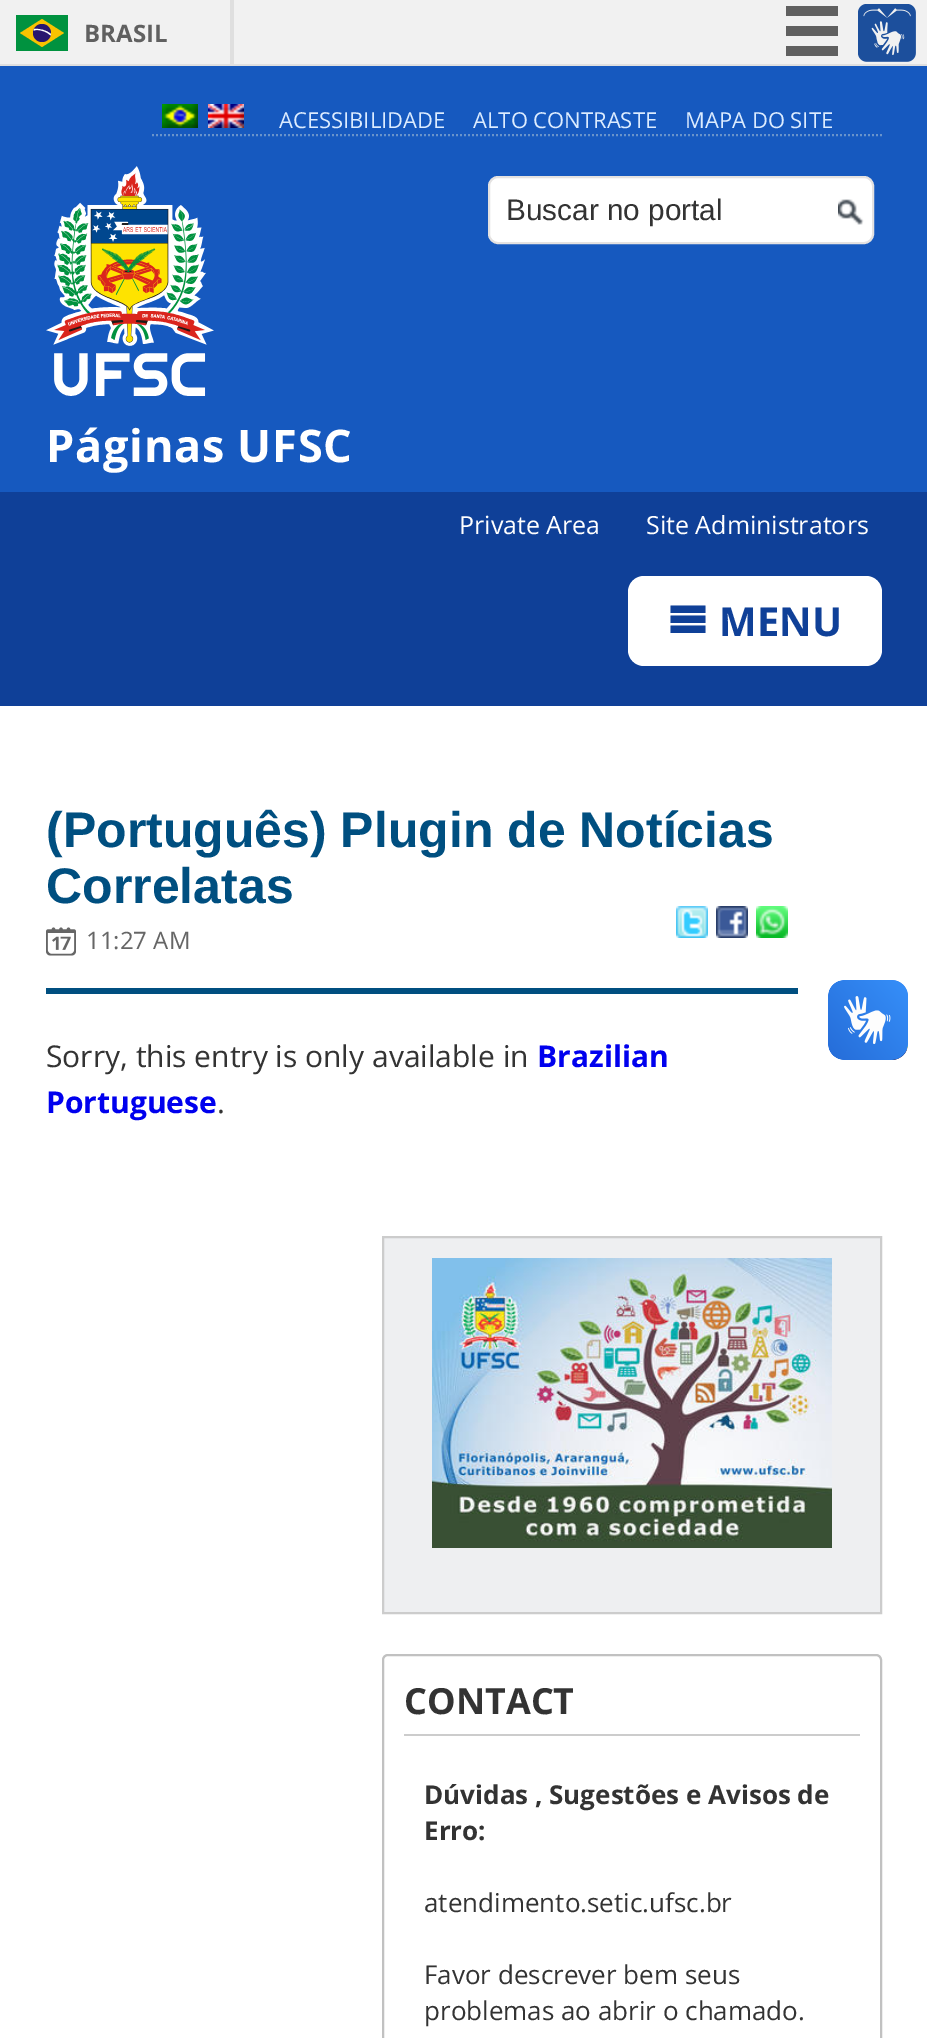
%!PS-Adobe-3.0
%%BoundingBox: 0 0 927 2038
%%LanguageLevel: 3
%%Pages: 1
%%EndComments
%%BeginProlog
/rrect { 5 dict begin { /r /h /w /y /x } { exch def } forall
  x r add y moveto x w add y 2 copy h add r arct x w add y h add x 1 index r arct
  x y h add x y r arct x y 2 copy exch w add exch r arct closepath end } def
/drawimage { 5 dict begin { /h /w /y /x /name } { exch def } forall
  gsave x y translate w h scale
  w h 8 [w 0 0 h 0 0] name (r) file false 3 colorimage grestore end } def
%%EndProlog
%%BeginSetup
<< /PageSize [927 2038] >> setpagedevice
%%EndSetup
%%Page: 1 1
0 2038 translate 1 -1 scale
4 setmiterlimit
1 setgray
0 0 927 2038 rectfill
0.945 setgray
0 0 927 64 rectfill
0.875 setgray
0 64 927 2 rectfill
230 0 4 64 rectfill
0 0.573 0.247 setrgbcolor
16 15 52 36 rectfill
0.973 0.765 0 setrgbcolor
newpath 42 19 moveto 20 33 lineto 42 47 lineto 64 33 lineto closepath fill
0.157 0.086 0.435 setrgbcolor
newpath 42 33 9 0 360 arc closepath fill
1 setgray
newpath 36.5 30 moveto 42 30 47 32 50.5 35.5 curveto 51 34 lineto 46 30 40 28.5 34 29 curveto 33.5 30.5 lineto closepath fill
0.376 setgray
786 6 52 10 rectfill
786 26 52 10 rectfill
786 46 52 10 rectfill
(images/1.raw) 858 4 58 58 drawimage
0.086 0.349 0.749 setrgbcolor
0 66 927 426 rectfill
0.408 0.576 0.796 setrgbcolor
2 setlinewidth
[2 2] 0 setdash
newpath 152 135 moveto 882 135 lineto stroke
(images/2.raw) 162 104 36 24 drawimage
(images/3.raw) 208 104 36 24 drawimage
1 setgray
489 177 384 66 9 rrect gsave fill grestore
0.894 0.886 0.882 setrgbcolor
[] 0 setdash
stroke
(images/4.raw) 838 199 26 26 drawimage
(images/5.raw) 46 166 168 230 drawimage
0.059 0.251 0.596 setrgbcolor
0 492 927 214 rectfill
1 setgray
628 576 254 90 16 rrect fill
0.059 0.251 0.596 setrgbcolor
newpath 670.5 605.5 moveto 670.5 613 lineto 705.5 613 lineto 705.5 605.5 lineto closepath 670.5 615.5 moveto 670.5 623 lineto 705.5 623 lineto 705.5 615.5 lineto closepath 670.5 625.5 moveto 670.5 633 lineto 705.5 633 lineto 705.5 625.5 lineto closepath fill
0 0.31 0.502 setrgbcolor
46 988 752 6 rectfill
(images/6.raw) 676 906 32 32 drawimage
(images/7.raw) 716 906 32 32 drawimage
(images/8.raw) 756 906 32 32 drawimage
(images/9.raw) 46 927 30 29 drawimage
0.933 0.937 0.945 setrgbcolor
newpath 383 1237 moveto 881 1237 lineto 881 1613 lineto 383 1613 lineto closepath gsave fill grestore
0.8 setgray
stroke
(images/10.raw) 432 1258 400 290 drawimage
0.757 setgray
383 1655 498 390 5 rrect stroke
0.8 setgray
404 1734 456 2 rectfill
(images/11.raw) 828 980 80 80 drawimage
(images/12.raw) 828 980 80 80 drawimage
/OpenSans-Bold [24 0 0 -24 0 0] selectfont
0.376 setgray
84 42 moveto (BRASIL) show
/OpenSans-Regular [22 0 0 -22 0 0] selectfont
0.863 0.925 1 setrgbcolor
279 128 moveto (ACESSIBILIDADE) show
473 128 moveto (ALTO CONTRASTE) show
685 128 moveto (MAPA DO SITE) show
/LiberationSans-Regular [29.75 0 0 -29.75 0 0] selectfont
0.2 setgray
506 220 moveto (Buscar no portal) show
/OpenSans-Bold [45 0 0 -45 0 0] selectfont
1 setgray
46 462 moveto 0.75 0 (Páginas UFSC) ashow
/OpenSans-Regular [25 0 0 -25 0 0] selectfont
459 534 moveto (Private Area) show
646 534 moveto (Site Administrators) show
/OpenSans-Bold [40 0 0 -40 0 0] selectfont
0.059 0.251 0.596 setrgbcolor
719 636 moveto (MENU) show
/LiberationSans-Bold [50 0 0 -50 0 0] selectfont
0 0.31 0.502 setrgbcolor
46 847 moveto (\(Português\) Plugin de Notícias) show
46 903 moveto (Correlatas) show
/OpenSans-Regular [24 0 0 -24 0 0] selectfont
0.4 setgray
86 949 moveto (11:27 AM) show
/OpenSans-Regular [30 0 0 -30 0 0] selectfont
0.2 setgray
46 1067 moveto (Sorry, this entry is only available in) show
/OpenSans-Bold [30 0 0 -30 0 0] selectfont
0 0 0.933 setrgbcolor
537 1067 moveto (Brazilian) show
46 1113 moveto (Portuguese) show
/OpenSans-Regular [30 0 0 -30 0 0] selectfont
0.2 setgray
217 1113 moveto (.) show
/OpenSans-Bold [36 0 0 -36 0 0] selectfont
404 1714 moveto (CONTACT) show
/OpenSans-Bold [26 0 0 -26 0 0] selectfont
424 1804 moveto (Dúvidas , Sugestões e Avisos de) show
424 1840 moveto (Erro:) show
/OpenSans-Regular [26 0 0 -26 0 0] selectfont
424 1912 moveto (atendimento.setic.ufsc.br) show
424 1984 moveto (Favor descrever bem seus) show
424 2020 moveto (problemas ao abrir o chamado.) show
showpage
%%EOF
